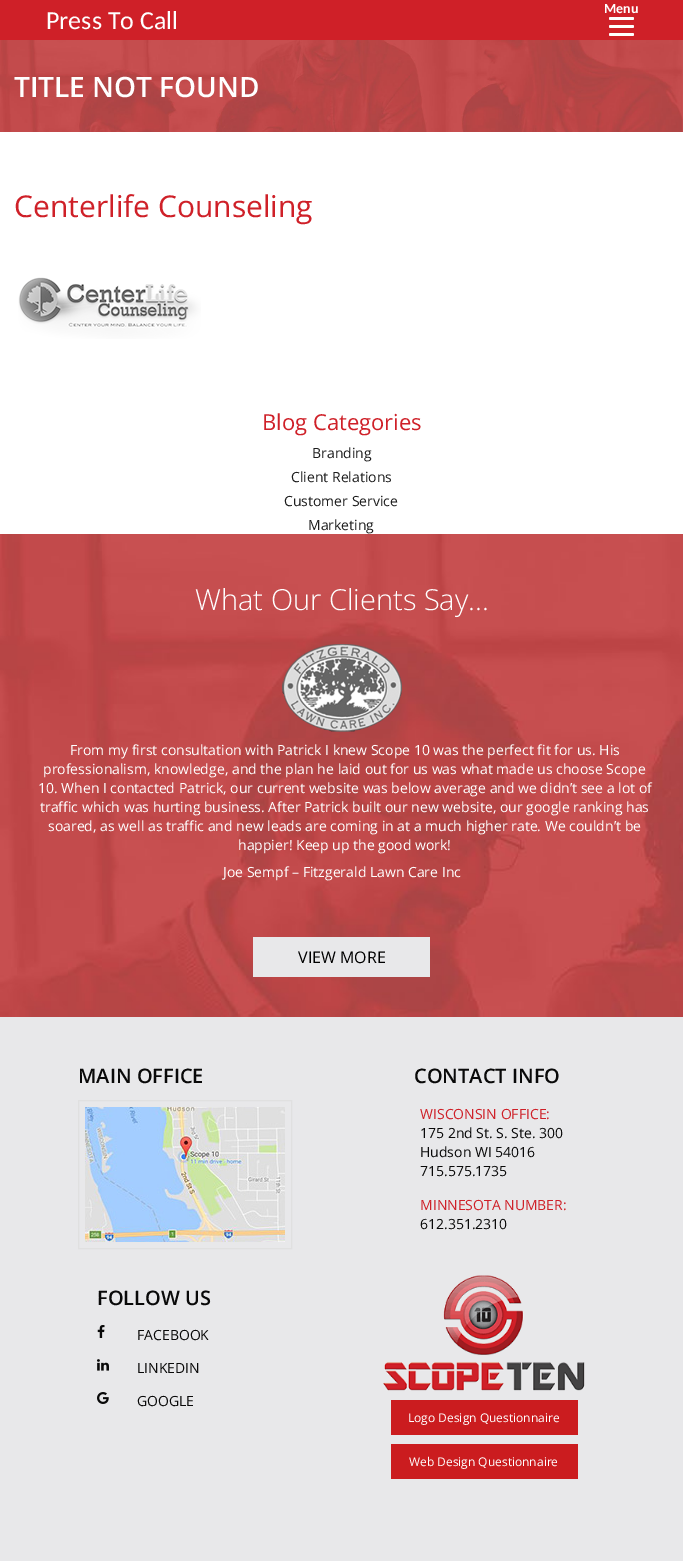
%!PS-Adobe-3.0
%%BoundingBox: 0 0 683 1561
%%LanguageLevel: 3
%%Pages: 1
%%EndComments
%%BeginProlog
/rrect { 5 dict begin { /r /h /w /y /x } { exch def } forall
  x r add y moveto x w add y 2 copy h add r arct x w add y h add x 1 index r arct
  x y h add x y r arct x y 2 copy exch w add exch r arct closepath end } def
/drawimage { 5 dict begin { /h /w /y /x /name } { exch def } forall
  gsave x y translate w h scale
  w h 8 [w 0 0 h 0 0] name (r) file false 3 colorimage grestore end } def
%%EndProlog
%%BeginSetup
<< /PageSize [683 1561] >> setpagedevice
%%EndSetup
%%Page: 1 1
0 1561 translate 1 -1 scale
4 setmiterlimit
1 setgray
0 0 683 1561 rectfill
0.812 0.125 0.157 setrgbcolor
0 0 683 40 rectfill
1 setgray
609 25 25 3 1.5 rrect fill
609 17 25 3 1.5 rrect fill
609 33 25 3 1.5 rrect fill
(images/1.raw) 0 40 683 92 drawimage
(images/2.raw) 18 277 183 62 drawimage
(images/3.raw) 0 534 683 483 drawimage
(images/4.raw) 282 644 120 88 drawimage
0.91 0.91 0.918 setrgbcolor
253 937 177 40 rectfill
0 1017 683 544 rectfill
0.878 setgray
78.5 1100.5 213 148 rectstroke
(images/5.raw) 85 1107 200 135 drawimage
(images/6.raw) 97 1325 8 13 drawimage
(images/7.raw) 97 1359 12 12 drawimage
(images/8.raw) 97 1392 12 12 drawimage
(images/9.raw) 383 1275 202 116 drawimage
0.796 0.11 0.122 setrgbcolor
391 1400 187 35 rectfill
391 1444 187 35 rectfill
/Carlito-Bold [14 0 0 -14 0 0] selectfont
1 setgray
604 13 moveto (Menu) show
/Carlito-Regular [26 0 0 -26 0 0] selectfont
46 29 moveto (Press To Call) show
/OpenSans-SemiBold [28 0 0 -28 0 0] selectfont
14 97 moveto (TITLE NOT FOUND) show
/OpenSans-Regular [30 0 0 -30 0 0] selectfont
0.812 0.125 0.157 setrgbcolor
14 217 moveto (Centerlife Counseling) show
/OpenSans-Regular [22 0 0 -22 0 0] selectfont
262 430 moveto (Blog Categories) show
/OpenSans-Regular [14 0 0 -14 0 0] selectfont
0.11 setgray
312 458 moveto (Branding) show
291 482 moveto (Client Relations) show
284 506 moveto (Customer Service) show
308 530 moveto (Marketing) show
/OpenSans-Light [29 0 0 -29 0 0] selectfont
1 setgray
195 610 moveto (What Our Clients Say...) show
/OpenSans-Regular [14 0 0 -14 0 0] selectfont
70 755 moveto (From my first consultation with Patrick I knew Scope 10 was the perfect fit for us. His) show
43 774 moveto (professionalism, knowledge, and the plan he laid out for us was what made us choose Scope) show
38 793 moveto (10. When I contacted Patrick, our current website was below average and we didn’t see a lot of) show
40 812 moveto (traffic which was hurting business. After Patrick built our new website, our google ranking has) show
48 831 moveto (soared, as well as traffic and new leads are coming in at a much higher rate. We couldn’t be) show
238 850 moveto (happier! Keep up the good work!) show
223 877 moveto (Joe Sempf – Fitzgerald Lawn Care Inc) show
/OpenSans-Regular [16 0 0 -16 0 0] selectfont
0 setgray
298 963 moveto (VIEW MORE) show
/OpenSans-SemiBold [20 0 0 -20 0 0] selectfont
0.035 setgray
78 1083 moveto (MAIN OFFICE) show
414 1083 moveto (CONTACT INFO) show
/OpenSans-Regular [14 0 0 -14 0 0] selectfont
0.812 0.125 0.157 setrgbcolor
420 1119 moveto (WISCONSIN OFFICE:) show
0.035 setgray
420 1138 moveto (175 2nd St. S. Ste. 300) show
420 1157 moveto (Hudson WI 54016) show
420 1176 moveto (715.575.1735) show
0.812 0.125 0.157 setrgbcolor
420 1210 moveto (MINNESOTA NUMBER:) show
0.035 setgray
420 1229 moveto (612.351.2310) show
/OpenSans-SemiBold [20 0 0 -20 0 0] selectfont
97 1305 moveto (FOLLOW US) show
/OpenSans-Regular [14 0 0 -14 0 0] selectfont
137 1340 moveto (FACEBOOK) show
137 1373 moveto (LINKEDIN) show
137 1406 moveto (GOOGLE) show
/OpenSans-Regular [12 0 0 -12 0 0] selectfont
1 setgray
408 1422 moveto (Logo Design Questionnaire) show
409 1466 moveto (Web Design Questionnaire) show
showpage
%%EOF
